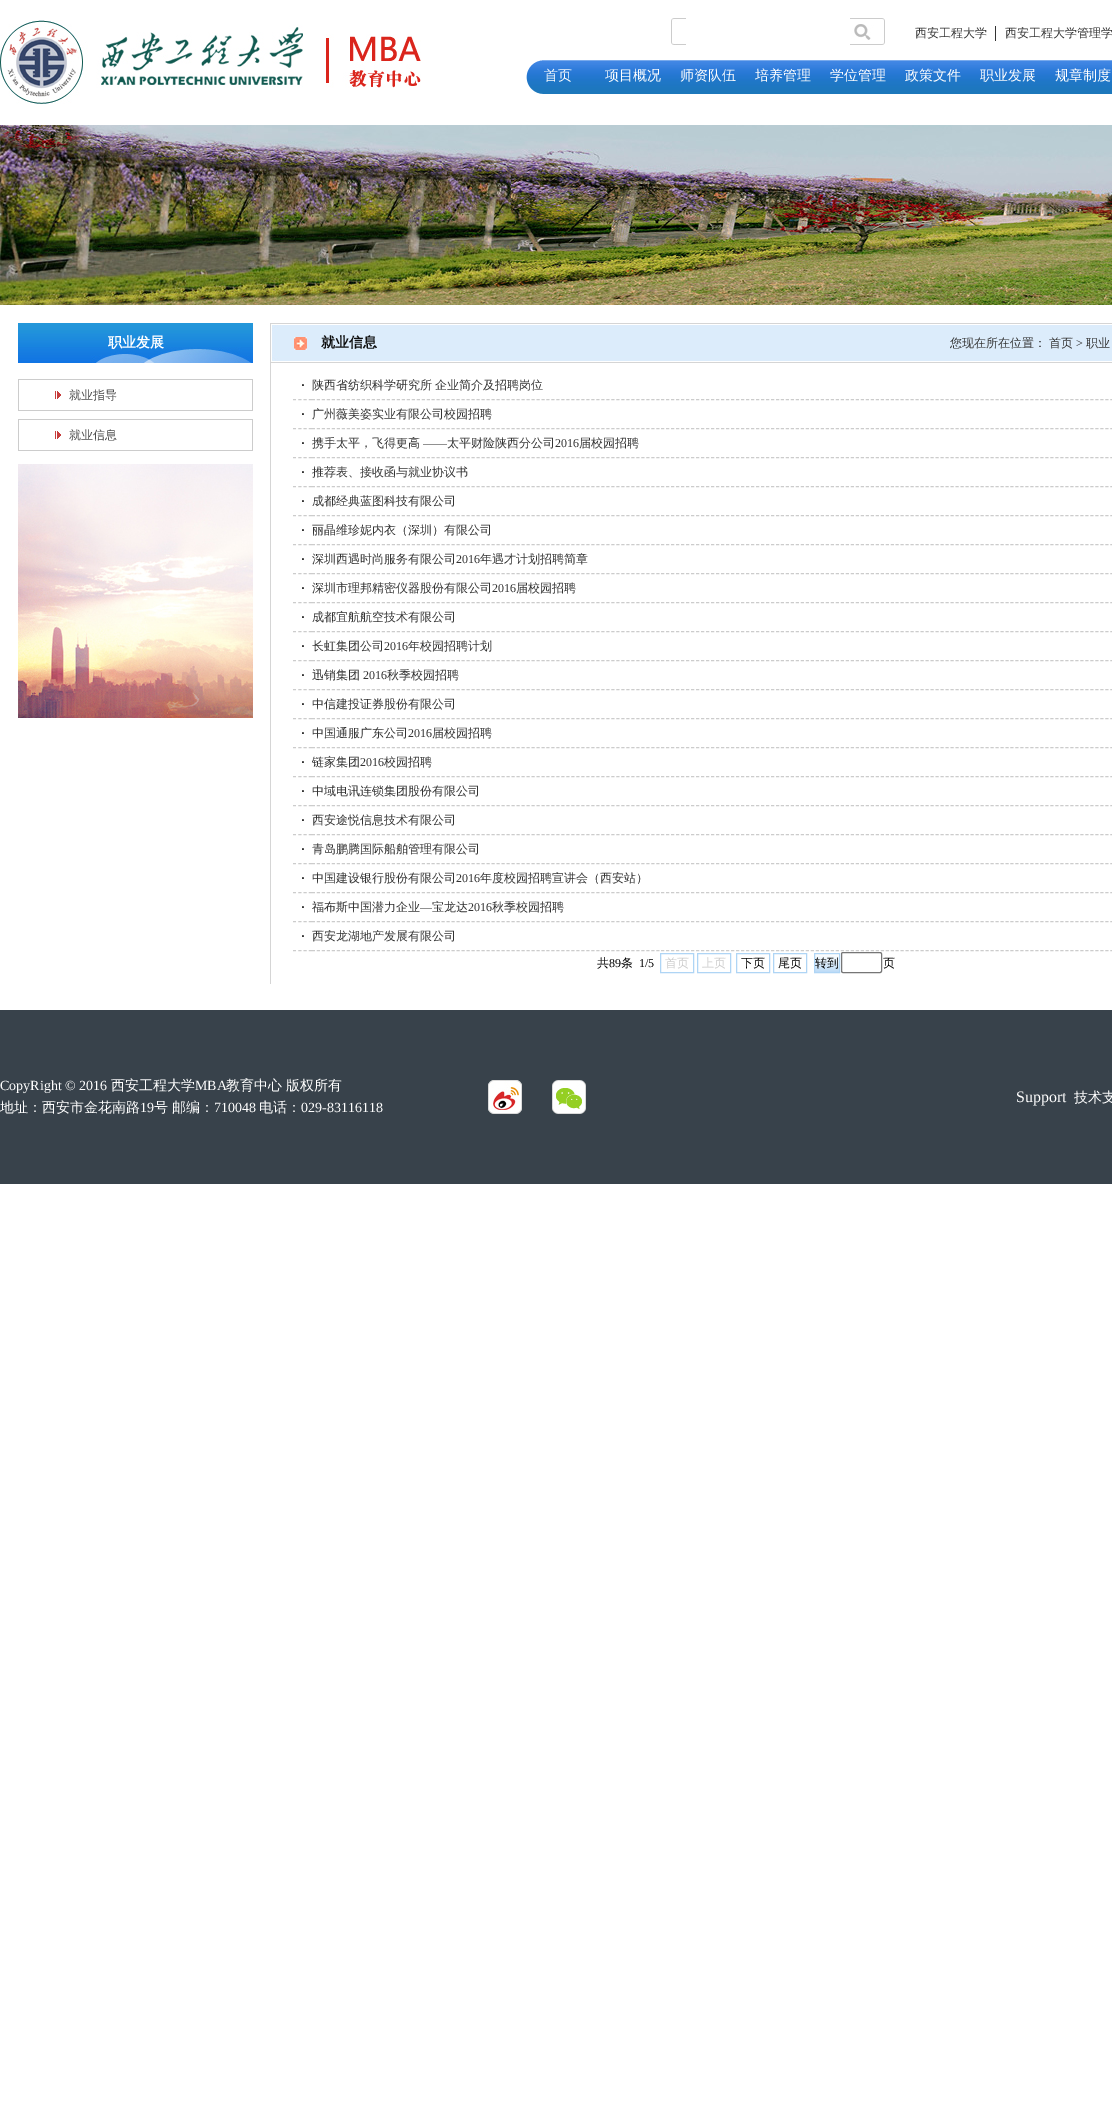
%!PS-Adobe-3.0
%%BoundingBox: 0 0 1112 2107
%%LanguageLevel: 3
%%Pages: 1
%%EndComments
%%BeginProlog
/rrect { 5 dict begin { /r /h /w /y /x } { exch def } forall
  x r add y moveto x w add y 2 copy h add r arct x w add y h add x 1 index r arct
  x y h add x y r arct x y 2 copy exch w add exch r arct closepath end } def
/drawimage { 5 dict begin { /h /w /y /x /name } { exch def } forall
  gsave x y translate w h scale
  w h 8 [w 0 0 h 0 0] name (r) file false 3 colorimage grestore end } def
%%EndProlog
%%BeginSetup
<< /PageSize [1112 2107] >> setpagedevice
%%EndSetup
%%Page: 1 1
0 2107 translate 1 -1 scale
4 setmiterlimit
1 setgray
0 0 1112 2107 rectfill
(images/1.raw) 0 20 303 84 drawimage
(images/2.raw) 326 34 95 54 drawimage
(images/3.raw) 671 18 15 27 drawimage
(images/4.raw) 850 18 35 27 drawimage
0.2 setgray
995 26 1 15 rectfill
(images/5.raw) 526 60 586 34 drawimage
(images/6.raw) 0 125 1112 180 drawimage
(images/7.raw) 18 323 235 40 drawimage
0.8 setgray
18 379 235 32 rectfill
1 setgray
19 380 233 30 rectfill
(images/8.raw) 55 391 6 8 drawimage
0.8 setgray
18 419 235 32 rectfill
1 setgray
19 420 233 30 rectfill
(images/8.raw) 55 431 6 8 drawimage
(images/9.raw) 18 464 235 254 drawimage
(images/10.raw) 270 323 842 40 drawimage
(images/11.raw) 294 337 13 13 drawimage
0.835 setgray
270 363 1 621 rectfill
0.8 setgray
[3 2.33] 0 setdash
newpath 293 399.5 moveto 312 399.5 lineto stroke
[3 1.99] 0 setdash
newpath 312 399.5 moveto 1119 399.5 lineto stroke
[3 2.33] 0 setdash
newpath 293 428.5 moveto 312 428.5 lineto stroke
[3 1.99] 0 setdash
newpath 312 428.5 moveto 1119 428.5 lineto stroke
[3 2.33] 0 setdash
newpath 293 457.5 moveto 312 457.5 lineto stroke
[3 1.99] 0 setdash
newpath 312 457.5 moveto 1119 457.5 lineto stroke
[3 2.33] 0 setdash
newpath 293 486.5 moveto 312 486.5 lineto stroke
[3 1.99] 0 setdash
newpath 312 486.5 moveto 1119 486.5 lineto stroke
[3 2.33] 0 setdash
newpath 293 515.5 moveto 312 515.5 lineto stroke
[3 1.99] 0 setdash
newpath 312 515.5 moveto 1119 515.5 lineto stroke
[3 2.33] 0 setdash
newpath 293 544.5 moveto 312 544.5 lineto stroke
[3 1.99] 0 setdash
newpath 312 544.5 moveto 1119 544.5 lineto stroke
[3 2.33] 0 setdash
newpath 293 573.5 moveto 312 573.5 lineto stroke
[3 1.99] 0 setdash
newpath 312 573.5 moveto 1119 573.5 lineto stroke
[3 2.33] 0 setdash
newpath 293 602.5 moveto 312 602.5 lineto stroke
[3 1.99] 0 setdash
newpath 312 602.5 moveto 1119 602.5 lineto stroke
[3 2.33] 0 setdash
newpath 293 631.5 moveto 312 631.5 lineto stroke
[3 1.99] 0 setdash
newpath 312 631.5 moveto 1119 631.5 lineto stroke
[3 2.33] 0 setdash
newpath 293 660.5 moveto 312 660.5 lineto stroke
[3 1.99] 0 setdash
newpath 312 660.5 moveto 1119 660.5 lineto stroke
[3 2.33] 0 setdash
newpath 293 689.5 moveto 312 689.5 lineto stroke
[3 1.99] 0 setdash
newpath 312 689.5 moveto 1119 689.5 lineto stroke
[3 2.33] 0 setdash
newpath 293 718.5 moveto 312 718.5 lineto stroke
[3 1.99] 0 setdash
newpath 312 718.5 moveto 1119 718.5 lineto stroke
[3 2.33] 0 setdash
newpath 293 747.5 moveto 312 747.5 lineto stroke
[3 1.99] 0 setdash
newpath 312 747.5 moveto 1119 747.5 lineto stroke
[3 2.33] 0 setdash
newpath 293 776.5 moveto 312 776.5 lineto stroke
[3 1.99] 0 setdash
newpath 312 776.5 moveto 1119 776.5 lineto stroke
[3 2.33] 0 setdash
newpath 293 805.5 moveto 312 805.5 lineto stroke
[3 1.99] 0 setdash
newpath 312 805.5 moveto 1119 805.5 lineto stroke
[3 2.33] 0 setdash
newpath 293 834.5 moveto 312 834.5 lineto stroke
[3 1.99] 0 setdash
newpath 312 834.5 moveto 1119 834.5 lineto stroke
[3 2.33] 0 setdash
newpath 293 863.5 moveto 312 863.5 lineto stroke
[3 1.99] 0 setdash
newpath 312 863.5 moveto 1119 863.5 lineto stroke
[3 2.33] 0 setdash
newpath 293 892.5 moveto 312 892.5 lineto stroke
[3 1.99] 0 setdash
newpath 312 892.5 moveto 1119 892.5 lineto stroke
[3 2.33] 0 setdash
newpath 293 921.5 moveto 312 921.5 lineto stroke
[3 1.99] 0 setdash
newpath 312 921.5 moveto 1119 921.5 lineto stroke
[3 2.33] 0 setdash
newpath 293 950.5 moveto 312 950.5 lineto stroke
[3 1.99] 0 setdash
newpath 312 950.5 moveto 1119 950.5 lineto stroke
0.686 0.835 0.961 setrgbcolor
[] 0 setdash
660.5 953.5 33 19 rectstroke
697.5 953.5 33 19 rectstroke
736.5 953.5 33 19 rectstroke
773.5 953.5 33 19 rectstroke
gsave newpath 815 955 moveto 839 955 lineto 839 972 lineto 815 972 lineto closepath clip newpath
<< /ShadingType 2 /ColorSpace /DeviceRGB /Coords [815 954 815 972] /Extend [true true] /Function << /FunctionType 2 /Domain [0 1] /C0 [1 1 1] /C1 [0.741 0.859 0.969] /N 1 >> >> shfill grestore
814.5 953.5 25 19 rectstroke
0.463 setgray
841.5 952.5 40 20 1.5 rrect stroke
0.22 0.259 0.294 setrgbcolor
0 1010 1112 174 rectfill
(images/12.raw) 488 1080 34 34 drawimage
(images/13.raw) 552 1080 34 34 drawimage
/WenQuanYiZenHei-Medium [12 0 0 -12 0 0] selectfont
0.2 setgray
915 37 moveto (西安工程大学) show
1005 37 moveto (西安工程大学管理学) show
/WenQuanYiZenHei-Medium [14 0 0 -14 0 0] selectfont
1 setgray
544 80 moveto (首页) show
605 80 moveto (项目概况) show
680 80 moveto (师资队伍) show
755 80 moveto (培养管理) show
830 80 moveto (学位管理) show
905 80 moveto (政策文件) show
980 80 moveto (职业发展) show
1055 80 moveto (规章制度) show
/WenQuanYiZenHei-Bold [14 0 0 -14 0 0] selectfont
108 347 moveto (职业发展) show
/WenQuanYiZenHei-Medium [12 0 0 -12 0 0] selectfont
0.294 setgray
69 399 moveto (就业指导) show
69 439 moveto (就业信息) show
/WenQuanYiZenHei-Bold [14 0 0 -14 0 0] selectfont
0.051 setgray
321 347 moveto (就业信息) show
/WenQuanYiZenHei-Medium [12 0 0 -12 0 0] selectfont
0.2 setgray
950 347 moveto (您现在所在位置：) show
1049 347 moveto (首页) show
/LiberationSerif-Regular [12 0 0 -12 0 0] selectfont
1076 347 moveto (>) show
/WenQuanYiZenHei-Medium [12 0 0 -12 0 0] selectfont
1086 347 moveto (职业) show
/LiberationSerif-Bold [12 0 0 -12 0 0] selectfont
0 setgray
301 389 moveto (·) show
/WenQuanYiZenHei-Medium [12 0 0 -12 0 0] selectfont
0.2 setgray
312 389 moveto -1 0 32 (陕西省纺织科学研究所 企业简介及招聘岗位) widthshow
/LiberationSerif-Bold [12 0 0 -12 0 0] selectfont
0 setgray
301 418 moveto (·) show
/WenQuanYiZenHei-Medium [12 0 0 -12 0 0] selectfont
0.2 setgray
312 418 moveto (广州薇美姿实业有限公司校园招聘) show
/LiberationSerif-Bold [12 0 0 -12 0 0] selectfont
0 setgray
301 447 moveto (·) show
/WenQuanYiZenHei-Medium [12 0 0 -12 0 0] selectfont
0.2 setgray
312 447 moveto (携手太平，飞得更高) show
/LiberationSerif-Regular [12 0 0 -12 0 0] selectfont
423 447 moveto (——) show
/WenQuanYiZenHei-Medium [12 0 0 -12 0 0] selectfont
447 447 moveto (太平财险陕西分公司) show
/LiberationSerif-Regular [12 0 0 -12 0 0] selectfont
555 447 moveto (2016) show
/WenQuanYiZenHei-Medium [12 0 0 -12 0 0] selectfont
579 447 moveto (届校园招聘) show
/LiberationSerif-Bold [12 0 0 -12 0 0] selectfont
0 setgray
301 476 moveto (·) show
/WenQuanYiZenHei-Medium [12 0 0 -12 0 0] selectfont
0.2 setgray
312 476 moveto (推荐表、接收函与就业协议书) show
/LiberationSerif-Bold [12 0 0 -12 0 0] selectfont
0 setgray
301 505 moveto (·) show
/WenQuanYiZenHei-Medium [12 0 0 -12 0 0] selectfont
0.2 setgray
312 505 moveto (成都经典蓝图科技有限公司) show
/LiberationSerif-Bold [12 0 0 -12 0 0] selectfont
0 setgray
301 534 moveto (·) show
/WenQuanYiZenHei-Medium [12 0 0 -12 0 0] selectfont
0.2 setgray
312 534 moveto (丽晶维珍妮内衣（深圳）有限公司) show
/LiberationSerif-Bold [12 0 0 -12 0 0] selectfont
0 setgray
301 563 moveto (·) show
/WenQuanYiZenHei-Medium [12 0 0 -12 0 0] selectfont
0.2 setgray
312 563 moveto (深圳西遇时尚服务有限公司) show
/LiberationSerif-Regular [12 0 0 -12 0 0] selectfont
456 563 moveto (2016) show
/WenQuanYiZenHei-Medium [12 0 0 -12 0 0] selectfont
480 563 moveto (年遇才计划招聘简章) show
/LiberationSerif-Bold [12 0 0 -12 0 0] selectfont
0 setgray
301 592 moveto (·) show
/WenQuanYiZenHei-Medium [12 0 0 -12 0 0] selectfont
0.2 setgray
312 592 moveto (深圳市理邦精密仪器股份有限公司) show
/LiberationSerif-Regular [12 0 0 -12 0 0] selectfont
492 592 moveto (2016) show
/WenQuanYiZenHei-Medium [12 0 0 -12 0 0] selectfont
516 592 moveto (届校园招聘) show
/LiberationSerif-Bold [12 0 0 -12 0 0] selectfont
0 setgray
301 621 moveto (·) show
/WenQuanYiZenHei-Medium [12 0 0 -12 0 0] selectfont
0.2 setgray
312 621 moveto (成都宜航航空技术有限公司) show
/LiberationSerif-Bold [12 0 0 -12 0 0] selectfont
0 setgray
301 650 moveto (·) show
/WenQuanYiZenHei-Medium [12 0 0 -12 0 0] selectfont
0.2 setgray
312 650 moveto (长虹集团公司) show
/LiberationSerif-Regular [12 0 0 -12 0 0] selectfont
384 650 moveto (2016) show
/WenQuanYiZenHei-Medium [12 0 0 -12 0 0] selectfont
408 650 moveto (年校园招聘计划) show
/LiberationSerif-Bold [12 0 0 -12 0 0] selectfont
0 setgray
301 679 moveto (·) show
/WenQuanYiZenHei-Medium [12 0 0 -12 0 0] selectfont
0.2 setgray
312 679 moveto (迅销集团) show
/LiberationSerif-Regular [12 0 0 -12 0 0] selectfont
363 679 moveto (2016) show
/WenQuanYiZenHei-Medium [12 0 0 -12 0 0] selectfont
387 679 moveto (秋季校园招聘) show
/LiberationSerif-Bold [12 0 0 -12 0 0] selectfont
0 setgray
301 708 moveto (·) show
/WenQuanYiZenHei-Medium [12 0 0 -12 0 0] selectfont
0.2 setgray
312 708 moveto (中信建投证券股份有限公司) show
/LiberationSerif-Bold [12 0 0 -12 0 0] selectfont
0 setgray
301 737 moveto (·) show
/WenQuanYiZenHei-Medium [12 0 0 -12 0 0] selectfont
0.2 setgray
312 737 moveto (中国通服广东公司) show
/LiberationSerif-Regular [12 0 0 -12 0 0] selectfont
408 737 moveto (2016) show
/WenQuanYiZenHei-Medium [12 0 0 -12 0 0] selectfont
432 737 moveto (届校园招聘) show
/LiberationSerif-Bold [12 0 0 -12 0 0] selectfont
0 setgray
301 766 moveto (·) show
/WenQuanYiZenHei-Medium [12 0 0 -12 0 0] selectfont
0.2 setgray
312 766 moveto (链家集团) show
/LiberationSerif-Regular [12 0 0 -12 0 0] selectfont
360 766 moveto (2016) show
/WenQuanYiZenHei-Medium [12 0 0 -12 0 0] selectfont
384 766 moveto (校园招聘) show
/LiberationSerif-Bold [12 0 0 -12 0 0] selectfont
0 setgray
301 795 moveto (·) show
/WenQuanYiZenHei-Medium [12 0 0 -12 0 0] selectfont
0.2 setgray
312 795 moveto (中域电讯连锁集团股份有限公司) show
/LiberationSerif-Bold [12 0 0 -12 0 0] selectfont
0 setgray
301 824 moveto (·) show
/WenQuanYiZenHei-Medium [12 0 0 -12 0 0] selectfont
0.2 setgray
312 824 moveto (西安途悦信息技术有限公司) show
/LiberationSerif-Bold [12 0 0 -12 0 0] selectfont
0 setgray
301 853 moveto (·) show
/WenQuanYiZenHei-Medium [12 0 0 -12 0 0] selectfont
0.2 setgray
312 853 moveto (青岛鹏腾国际船舶管理有限公司) show
/LiberationSerif-Bold [12 0 0 -12 0 0] selectfont
0 setgray
301 882 moveto (·) show
/WenQuanYiZenHei-Medium [12 0 0 -12 0 0] selectfont
0.2 setgray
312 882 moveto (中国建设银行股份有限公司) show
/LiberationSerif-Regular [12 0 0 -12 0 0] selectfont
456 882 moveto (2016) show
/WenQuanYiZenHei-Medium [12 0 0 -12 0 0] selectfont
480 882 moveto (年度校园招聘宣讲会（西安站）) show
/LiberationSerif-Bold [12 0 0 -12 0 0] selectfont
0 setgray
301 911 moveto (·) show
/WenQuanYiZenHei-Medium [12 0 0 -12 0 0] selectfont
0.2 setgray
312 911 moveto (福布斯中国潜力企业) show
/LiberationSerif-Regular [12 0 0 -12 0 0] selectfont
420 911 moveto (—) show
/WenQuanYiZenHei-Medium [12 0 0 -12 0 0] selectfont
432 911 moveto (宝龙达) show
/LiberationSerif-Regular [12 0 0 -12 0 0] selectfont
468 911 moveto (2016) show
/WenQuanYiZenHei-Medium [12 0 0 -12 0 0] selectfont
492 911 moveto (秋季校园招聘) show
/LiberationSerif-Bold [12 0 0 -12 0 0] selectfont
0 setgray
301 940 moveto (·) show
/WenQuanYiZenHei-Medium [12 0 0 -12 0 0] selectfont
0.2 setgray
312 940 moveto (西安龙湖地产发展有限公司) show
0 setgray
597 967 moveto (共) show
/LiberationSerif-Regular [12 0 0 -12 0 0] selectfont
609 967 moveto (89) show
/WenQuanYiZenHei-Medium [12 0 0 -12 0 0] selectfont
621 967 moveto (条) show
/LiberationSerif-Regular [12 0 0 -12 0 0] selectfont
639 967 moveto (1/5) show
/WenQuanYiZenHei-Medium [12 0 0 -12 0 0] selectfont
0.8 setgray
665 967 moveto (首页) show
702 967 moveto (上页) show
0 setgray
741 967 moveto (下页) show
778 967 moveto (尾页) show
815 967 moveto (转到) show
883 967 moveto (页) show
/LiberationSerif-Regular [14 0 0 -14 0 0] selectfont
1 setgray
0 1090 moveto (CopyRight © 2016) show
/WenQuanYiZenHei-Medium [14 0 0 -14 0 0] selectfont
111 1090 moveto (西安工程大学) show
/LiberationSerif-Regular [14 0 0 -14 0 0] selectfont
195 1090 moveto (MBA) show
/WenQuanYiZenHei-Medium [14 0 0 -14 0 0] selectfont
226 1090 moveto (教育中心) show
286 1090 moveto (版权所有) show
0 1112 moveto (地址：西安市金花南路) show
/LiberationSerif-Regular [14 0 0 -14 0 0] selectfont
140 1112 moveto (19) show
/WenQuanYiZenHei-Medium [14 0 0 -14 0 0] selectfont
154 1112 moveto (号) show
172 1112 moveto (邮编：) show
/LiberationSerif-Regular [14 0 0 -14 0 0] selectfont
214 1112 moveto (710048) show
/WenQuanYiZenHei-Medium [14 0 0 -14 0 0] selectfont
259 1112 moveto (电话：) show
/LiberationSerif-Regular [14 0 0 -14 0 0] selectfont
301 1112 moveto (029-83116118) show
/LiberationSerif-Regular [16 0 0 -16 0 0] selectfont
1016 1102 moveto (Support) show
/WenQuanYiZenHei-Medium [14 0 0 -14 0 0] selectfont
1074 1102 moveto (技术支) show
showpage
%%EOF
